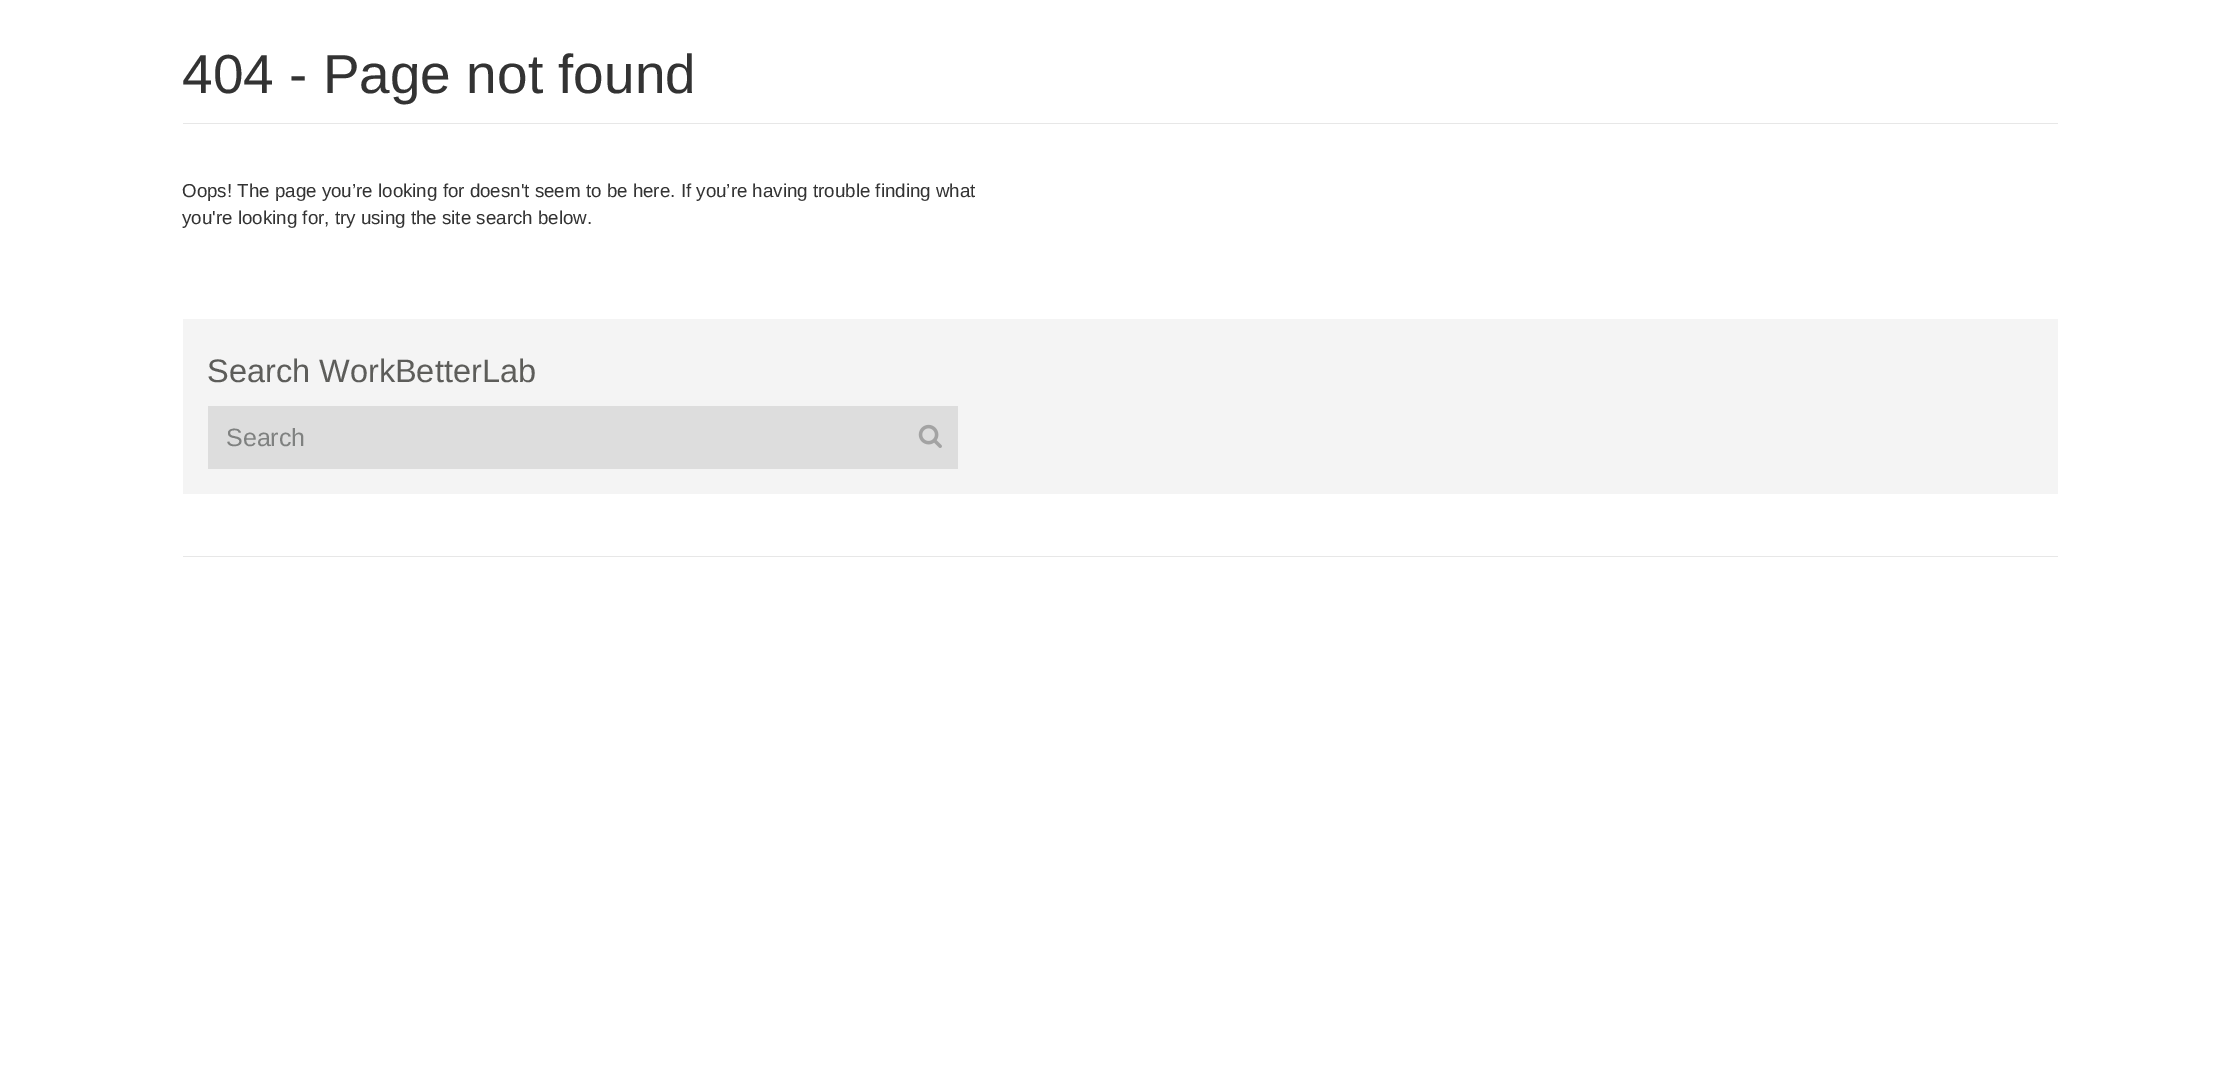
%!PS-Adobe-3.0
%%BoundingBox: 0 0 2238 1083
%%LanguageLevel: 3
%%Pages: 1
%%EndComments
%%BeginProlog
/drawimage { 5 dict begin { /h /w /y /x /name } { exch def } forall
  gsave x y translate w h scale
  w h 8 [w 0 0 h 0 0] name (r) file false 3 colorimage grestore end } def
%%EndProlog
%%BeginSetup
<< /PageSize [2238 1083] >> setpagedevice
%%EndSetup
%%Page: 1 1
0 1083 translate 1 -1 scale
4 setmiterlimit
1 setgray
0 0 2238 1083 rectfill
0.906 setgray
183 123 1875 1 rectfill
0.957 setgray
183 319 1875 175 rectfill
0.867 setgray
208 406 750 63 rectfill
(images/1.raw) 918 424 24 24 drawimage
0.906 setgray
183 556 1875 1 rectfill
/LiberationSans-Regular [55 0 0 -55 0 0] selectfont
0.2 setgray
182 93 moveto (404 - Page not found) show
/LiberationSans-Regular [18.75 0 0 -18.75 0 0] selectfont
182 197 moveto (Oops! The page you’re looking for doesn't seem to be here. If you’re having trouble finding what) show
182 224 moveto (you're looking for, try using the site search below.) show
/LiberationSans-Regular [32.5 0 0 -32.5 0 0] selectfont
0.365 0.365 0.353 setrgbcolor
207 382 moveto (Search WorkBetterLab) show
/LiberationSans-Regular [25 0 0 -25 0 0] selectfont
0.498 0.506 0.502 setrgbcolor
226 446 moveto (Search) show
showpage
%%EOF
